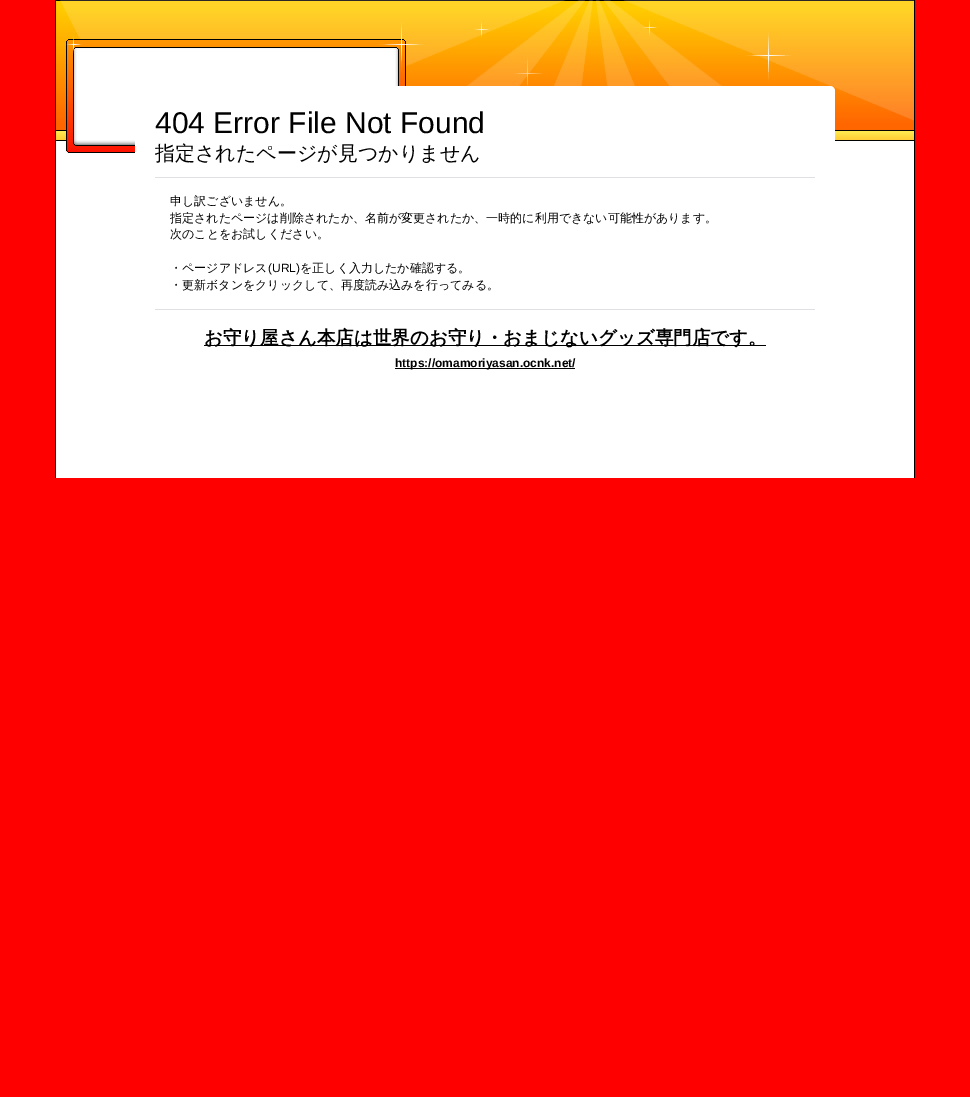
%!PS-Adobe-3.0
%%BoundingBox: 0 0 970 1097
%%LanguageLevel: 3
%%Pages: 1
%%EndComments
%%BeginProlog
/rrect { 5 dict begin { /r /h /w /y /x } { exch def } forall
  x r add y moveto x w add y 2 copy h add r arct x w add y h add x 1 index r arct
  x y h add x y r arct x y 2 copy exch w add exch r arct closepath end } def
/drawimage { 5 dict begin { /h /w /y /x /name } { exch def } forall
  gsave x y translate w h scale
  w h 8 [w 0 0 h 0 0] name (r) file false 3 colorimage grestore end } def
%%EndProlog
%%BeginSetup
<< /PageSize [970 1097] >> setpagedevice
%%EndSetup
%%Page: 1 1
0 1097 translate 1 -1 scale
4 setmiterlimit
1 0 0 setrgbcolor
0 0 970 1097 rectfill
1 setgray
56 154 858 324 rectfill
(images/1.raw) 56 0 858 154 drawimage
0 setgray
914 0 1 478 rectfill
55 0 1 478 rectfill
1 setgray
135 86 700 306 5 rrect fill
0.878 0.875 0.89 setrgbcolor
155 177 660 1 rectfill
155 309 660 1 rectfill
0 setgray
204 345 562 1 rectfill
395 368 180 1 rectfill
/LiberationSans-Regular [30 0 0 -30 0 0] selectfont
155 133 moveto (404 Error File Not Found) show
/WenQuanYiZenHei-Medium [20 0 0 -20 0 0] selectfont
155 160 moveto (指定されたページが見つかりません) show
/WenQuanYiZenHei-Medium [12 0 0 -12 0 0] selectfont
170 205 moveto (申し訳ございません。) show
170 222 moveto (指定されたページは削除されたか、名前が変更されたか、一時的に利用できない可能性があります。) show
170 238 moveto (次のことをお試しください。) show
170 272 moveto (・ページアドレス) show
/LiberationSans-Regular [12 0 0 -12 0 0] selectfont
268 272 moveto (\(URL\)) show
/WenQuanYiZenHei-Medium [12 0 0 -12 0 0] selectfont
300 272 moveto (を正しく入力したか確認する。) show
170 289 moveto (・更新ボタンをクリックして、再度読み込みを行ってみる。) show
/WenQuanYiZenHei-Bold [18.5 0 0 -18.5 0 0] selectfont
204 344 moveto (お守り屋さん本店は世界のお守り・おまじないグッズ専門店です。) show
/LiberationSans-Bold [12 0 0 -12 0 0] selectfont
395 367 moveto (https://omamoriyasan.ocnk.net/) show
showpage
%%EOF
